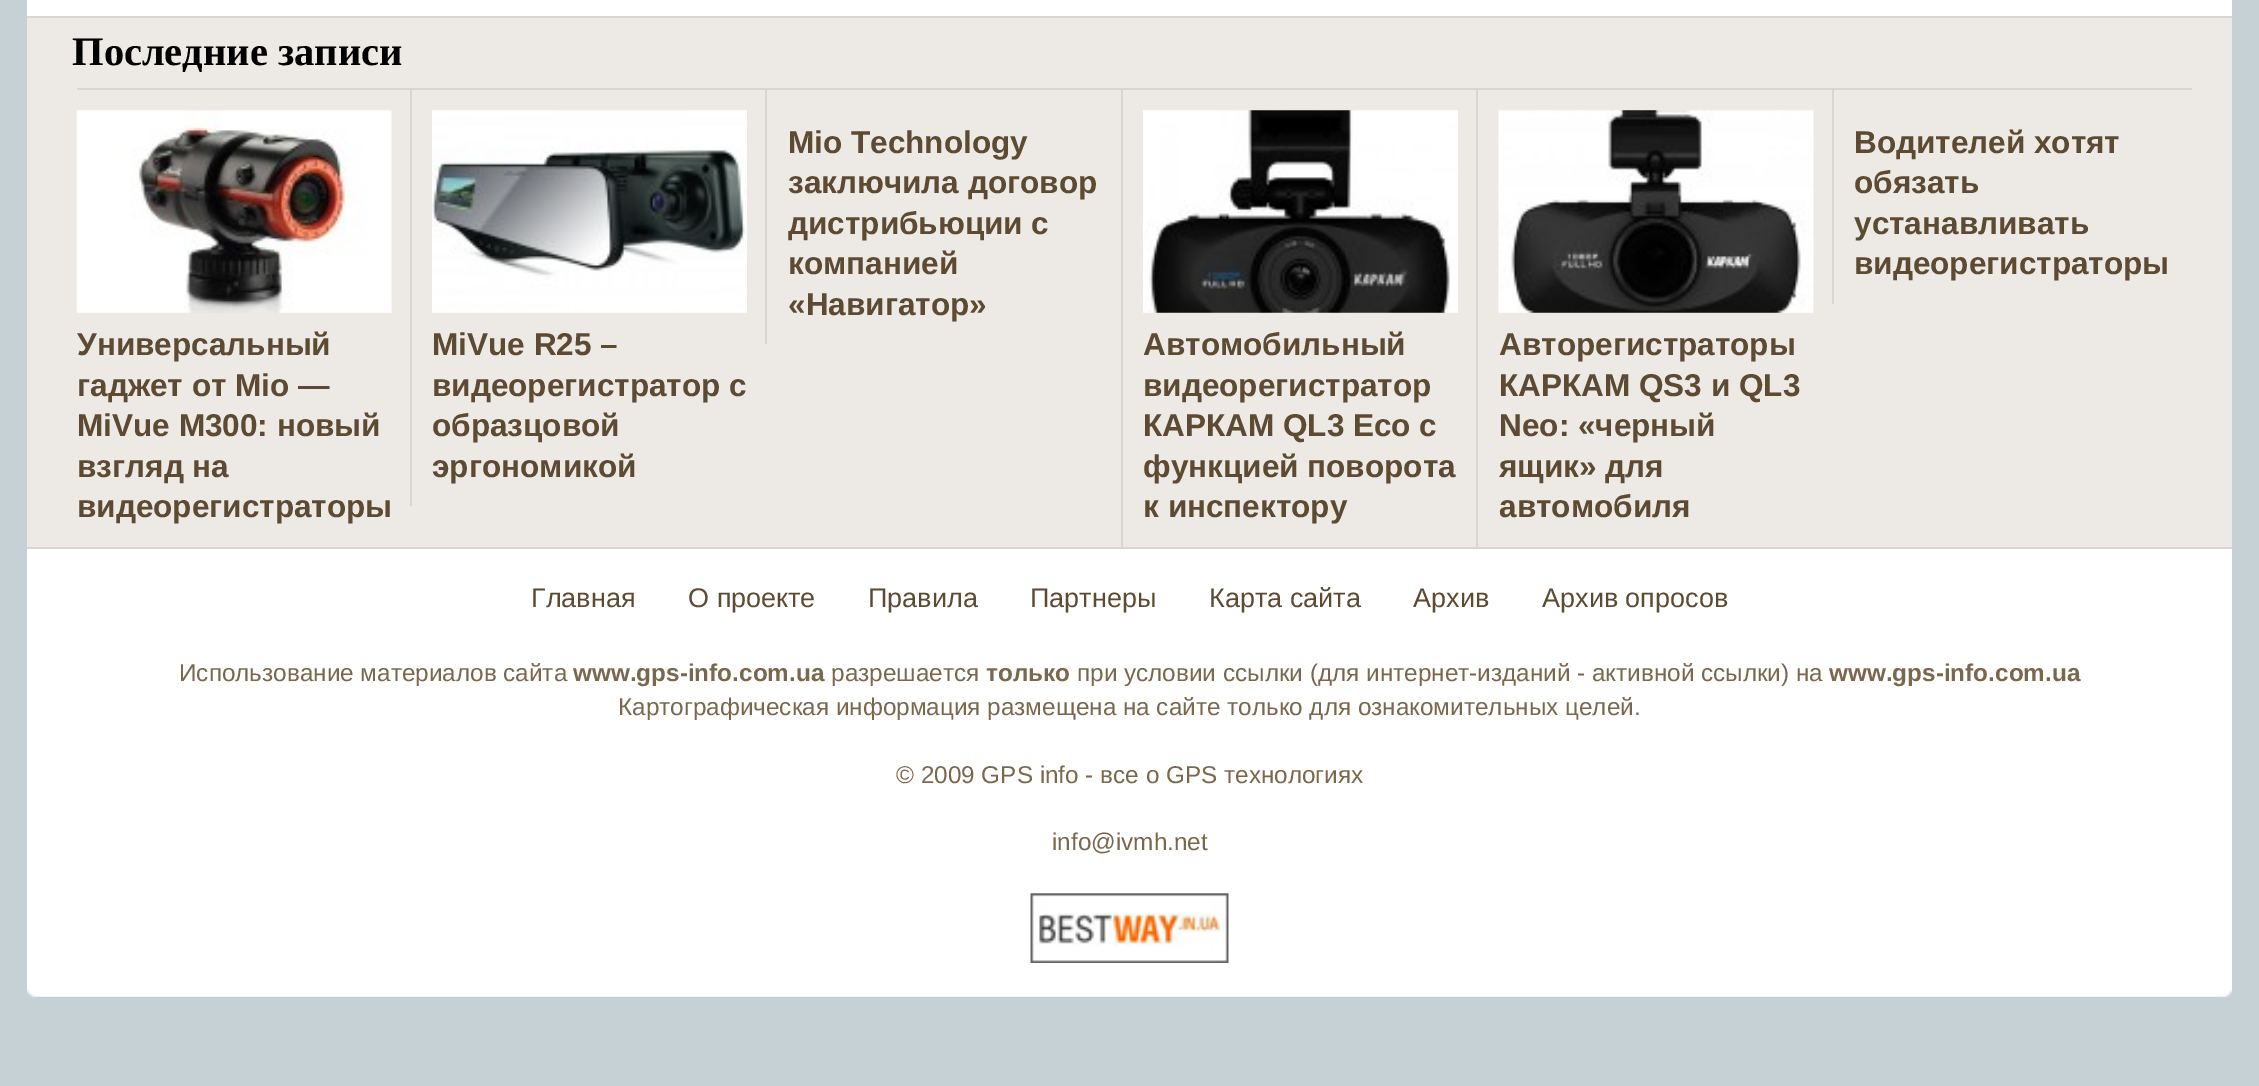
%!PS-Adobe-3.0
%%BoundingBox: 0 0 2259 1086
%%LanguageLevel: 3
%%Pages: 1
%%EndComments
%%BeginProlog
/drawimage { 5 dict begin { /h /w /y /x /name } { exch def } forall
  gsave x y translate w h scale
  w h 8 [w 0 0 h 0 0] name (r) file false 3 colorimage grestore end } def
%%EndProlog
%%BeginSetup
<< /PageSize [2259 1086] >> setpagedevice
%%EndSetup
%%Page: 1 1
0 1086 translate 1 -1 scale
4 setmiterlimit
0.776 0.82 0.835 setrgbcolor
0 0 2259 1086 rectfill
1 setgray
27 0 2205 986 rectfill
0.929 0.914 0.894 setrgbcolor
27 18 2205 529 rectfill
0.851 0.839 0.824 setrgbcolor
27 16 2205 2 rectfill
27 547 2205 2 rectfill
77 88 2115 2 rectfill
765 90 2 254 rectfill
1832 90 2 214 rectfill
(images/1.raw) 76 110 316 203 drawimage
410 90 2 416 rectfill
(images/2.raw) 432 110 315 203 drawimage
1121 90 2 457 rectfill
(images/3.raw) 1143 110 315 203 drawimage
1476 90 2 457 rectfill
(images/4.raw) 1498 110 316 203 drawimage
(images/5.raw) 1030 893 199 70 drawimage
(images/6.raw) 27 986 2205 11 drawimage
/LiberationSerif-Bold [40.5 0 0 -40.5 0 0] selectfont
0 setgray
72 65 moveto (Последние записи) show
/LiberationSans-Bold [31.5 0 0 -31.5 0 0] selectfont
0.361 0.29 0.196 setrgbcolor
788 153 moveto (Mio Technology) show
788 193 moveto (заключила договор) show
788 234 moveto (дистрибьюции с) show
788 274 moveto (компанией) show
788 315 moveto («Навигатор») show
1854 153 moveto (Водителей хотят) show
1854 193 moveto (обязать) show
1854 234 moveto (устанавливать) show
1854 274 moveto (видеорегистраторы) show
77 355 moveto (Универсальный) show
77 396 moveto (гаджет от Mio —) show
77 436 moveto (MiVue M300: новый) show
77 477 moveto (взгляд на) show
77 517 moveto (видеорегистраторы) show
432 355 moveto (MiVue R25 –) show
432 396 moveto (видеорегистратор с) show
432 436 moveto (образцовой) show
432 477 moveto (эргономикой) show
1143 355 moveto (Автомобильный) show
1143 396 moveto (видеорегистратор) show
1143 436 moveto (КАРКАМ QL3 Eco с) show
1143 477 moveto (функцией поворота) show
1143 517 moveto (к инспектору) show
1499 355 moveto (Авторегистраторы) show
1499 396 moveto (КАРКАМ QS3 и QL3) show
1499 436 moveto (Neo: «черный) show
1499 477 moveto (ящик» для) show
1499 517 moveto (автомобиля) show
/LiberationSans-Regular [27 0 0 -27 0 0] selectfont
531 607 moveto (Главная) show
688 607 moveto (О проекте) show
868 607 moveto (Правила) show
1030 607 moveto (Партнеры) show
1209 607 moveto (Карта сайта) show
1413 607 moveto (Архив) show
1542 607 moveto (Архив опросов) show
/LiberationSans-Regular [24.3 0 0 -24.3 0 0] selectfont
0.478 0.404 0.298 setrgbcolor
179 681 moveto (Использование материалов сайта) show
/LiberationSans-Bold [24.3 0 0 -24.3 0 0] selectfont
573 681 moveto (www.gps-info.com.ua) show
/LiberationSans-Regular [24.3 0 0 -24.3 0 0] selectfont
831 681 moveto (разрешается) show
/LiberationSans-Bold [24.3 0 0 -24.3 0 0] selectfont
986 681 moveto (только) show
/LiberationSans-Regular [24.3 0 0 -24.3 0 0] selectfont
1077 681 moveto (при условии ссылки \(для интернет-изданий - активной ссылки\) на) show
/LiberationSans-Bold [24.3 0 0 -24.3 0 0] selectfont
1829 681 moveto (www.gps-info.com.ua) show
/LiberationSans-Regular [24.3 0 0 -24.3 0 0] selectfont
618 715 moveto (Картографическая информация размещена на сайте только для ознакомительных целей.) show
896 783 moveto (© 2009 GPS info - все о GPS технологиях) show
1052 850 moveto (info@ivmh.net) show
showpage
%%EOF
